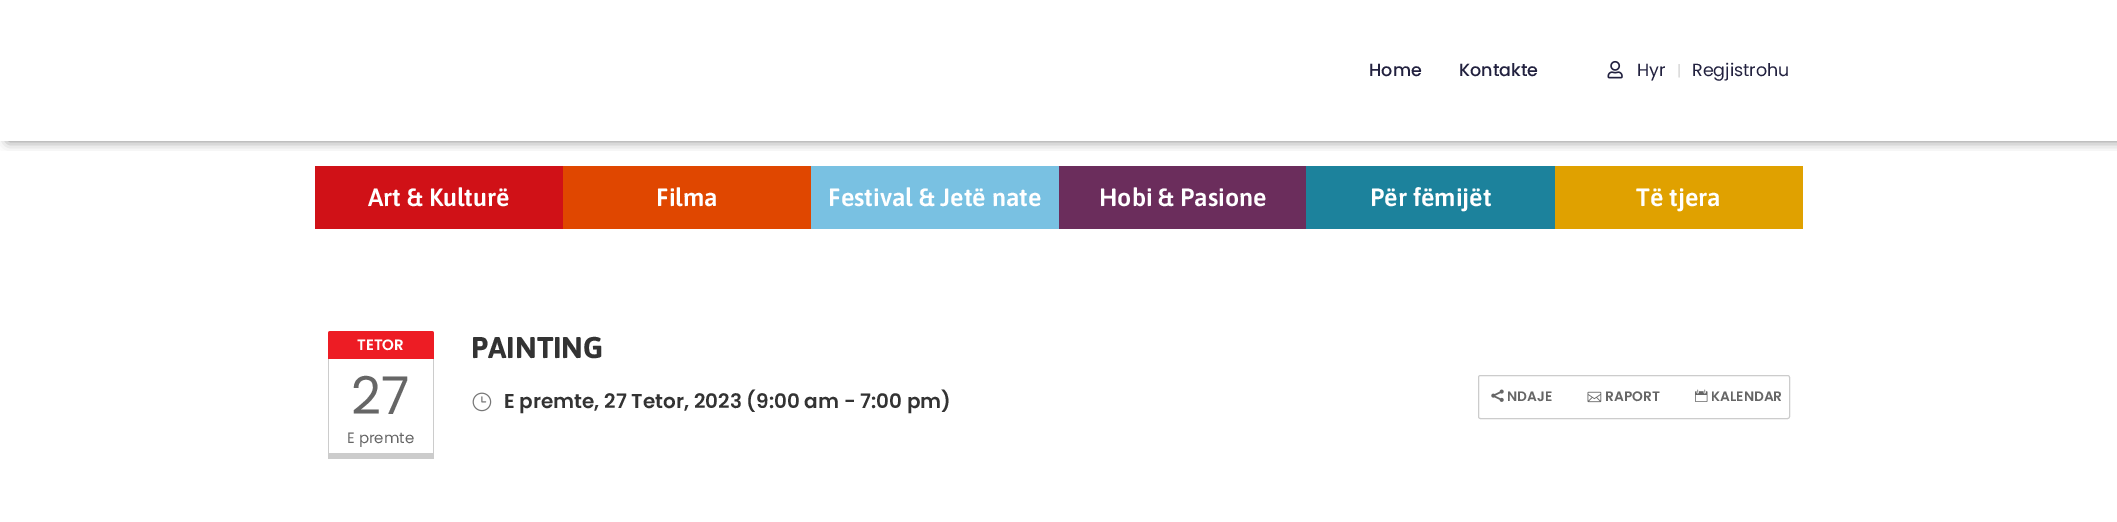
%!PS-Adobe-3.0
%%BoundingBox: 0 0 2117 522
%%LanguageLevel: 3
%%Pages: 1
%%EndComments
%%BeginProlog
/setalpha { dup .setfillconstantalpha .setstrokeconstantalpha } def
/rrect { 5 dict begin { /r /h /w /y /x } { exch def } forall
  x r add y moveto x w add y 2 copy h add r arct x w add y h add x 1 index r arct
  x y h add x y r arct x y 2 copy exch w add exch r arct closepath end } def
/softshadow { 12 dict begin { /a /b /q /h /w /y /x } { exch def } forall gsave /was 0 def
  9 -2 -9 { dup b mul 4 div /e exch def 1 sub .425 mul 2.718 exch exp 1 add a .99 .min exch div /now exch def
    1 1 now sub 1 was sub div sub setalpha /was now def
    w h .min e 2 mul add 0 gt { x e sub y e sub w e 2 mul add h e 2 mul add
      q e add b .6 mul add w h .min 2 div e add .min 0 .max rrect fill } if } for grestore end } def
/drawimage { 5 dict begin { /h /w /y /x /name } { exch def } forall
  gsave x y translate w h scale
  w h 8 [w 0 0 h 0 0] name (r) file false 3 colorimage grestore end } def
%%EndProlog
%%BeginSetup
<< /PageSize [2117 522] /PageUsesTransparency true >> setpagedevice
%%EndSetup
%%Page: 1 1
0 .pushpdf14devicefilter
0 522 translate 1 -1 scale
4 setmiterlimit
1 setgray
0 0 2117 522 rectfill
gsave
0 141 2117 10 rectclip
0 setgray
8 0 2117 141 0 6 0.5 softshadow
grestore
(images/1.raw) 1607 60 16 19 drawimage
0.816 0.067 0.09 setrgbcolor
315 166 248 63 rectfill
0.878 0.278 0 setrgbcolor
563 166 248 63 rectfill
0.475 0.757 0.886 setrgbcolor
811 166 248 63 rectfill
0.42 0.176 0.361 setrgbcolor
1059 166 247 63 rectfill
0.11 0.51 0.612 setrgbcolor
1306 166 249 63 rectfill
0.878 0.631 0 setrgbcolor
1555 166 248 63 rectfill
0.929 0.11 0.141 setrgbcolor
newpath 330.5 331 moveto 431.5 331 lineto 433 331 434 332 434 333.5 curveto 434 359 lineto 328 359 lineto 328 333.5 lineto 328 332 329 331 330.5 331 curveto closepath fill
0.8 setgray
433 359 1 100 rectfill
328 453 106 6 rectfill
328 359 1 100 rectfill
(images/2.raw) 472 392 20 20 drawimage
1478.5 375.5 311 43 2 rrect stroke
(images/3.raw) 1491 389 13 13 drawimage
(images/4.raw) 1587 391 15 12 drawimage
(images/5.raw) 1695 389 13 13 drawimage
/Poppins-Medium [17.5 0 0 -17.5 0 0] selectfont
0.133 0.129 0.247 setrgbcolor
1369 76 moveto (Home) show
1459 76 moveto (Kontakte) show
/Poppins-Regular [17.5 0 0 -17.5 0 0] selectfont
1637 76 moveto (Hyr) show
/Poppins-Regular [15 0 0 -15 0 0] selectfont
0.82 setgray
1677 76 moveto (|) show
/Poppins-Regular [17.5 0 0 -17.5 0 0] selectfont
0.133 0.129 0.247 setrgbcolor
1692 76 moveto (Regjistrohu) show
/Asap-SemiBold [25 0 0 -25 0 0] selectfont
1 setgray
368 206 moveto (Art & Kulturë) show
656 206 moveto (Filma) show
828 206 moveto (Festival & Jetë nate) show
1099 206 moveto (Hobi & Pasione) show
1370 206 moveto (Për fëmijët) show
1636 206 moveto (Të tjera) show
/Poppins-SemiBold [15 0 0 -15 0 0] selectfont
357 350 moveto (TETOR) show
/Poppins-Regular [52 0 0 -52 0 0] selectfont
0.4 setgray
351 414 moveto (27) show
/Poppins-Regular [15 0 0 -15 0 0] selectfont
347 443 moveto (E premte) show
/Asap-Bold [30 0 0 -30 0 0] selectfont
0.2 setgray
471 358 moveto (PAINTING) show
/Poppins-SemiBold [20 0 0 -20 0 0] selectfont
504 408 moveto (E premte, 27 Tetor, 2023 \(9:00 am - 7:00 pm\)) show
/Poppins-SemiBold [13.75 0 0 -13.75 0 0] selectfont
0.4 setgray
1507 401 moveto (NDAJE) show
1605 401 moveto (RAPORT) show
1711 401 moveto (KALENDAR) show
.poppdf14devicefilter showpage
%%EOF
